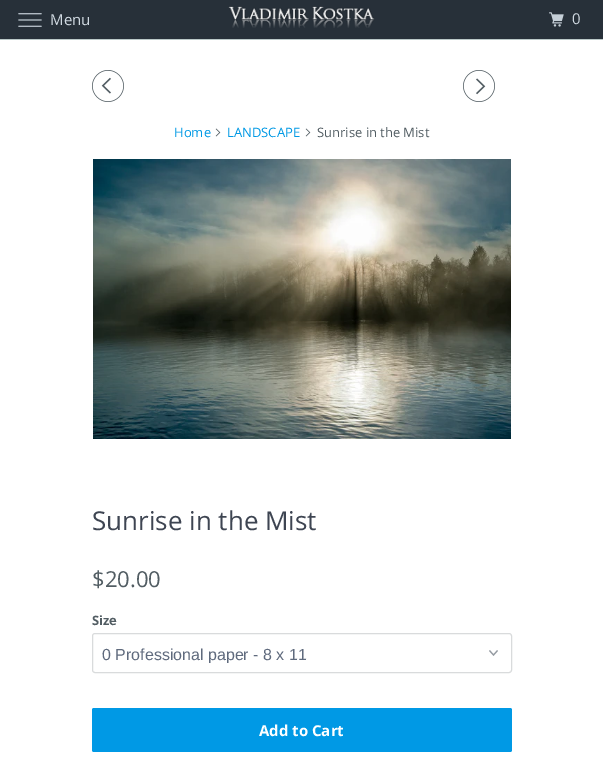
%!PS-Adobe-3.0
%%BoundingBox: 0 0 603 764
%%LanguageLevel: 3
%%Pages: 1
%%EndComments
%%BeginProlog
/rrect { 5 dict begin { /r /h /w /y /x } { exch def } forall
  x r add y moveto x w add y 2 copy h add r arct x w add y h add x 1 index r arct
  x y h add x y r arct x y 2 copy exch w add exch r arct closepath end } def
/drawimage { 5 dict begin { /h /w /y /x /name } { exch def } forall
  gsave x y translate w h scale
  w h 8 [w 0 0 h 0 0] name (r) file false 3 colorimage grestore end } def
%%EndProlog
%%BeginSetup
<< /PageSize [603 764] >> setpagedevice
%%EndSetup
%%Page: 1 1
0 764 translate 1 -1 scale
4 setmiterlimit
1 setgray
0 0 603 764 rectfill
0.153 0.188 0.224 setrgbcolor
0 0 603 39 rectfill
0.733 0.784 0.784 setrgbcolor
0 39 603 1 rectfill
(images/1.raw) 18 13 24 14 drawimage
(images/2.raw) 228 6 147 22 drawimage
(images/3.raw) 549 12 15 15 drawimage
(images/4.raw) 92 70 32 32 drawimage
(images/5.raw) 463 70 32 32 drawimage
(images/6.raw) 215 128 6 9 drawimage
(images/6.raw) 305 128 6 9 drawimage
(images/7.raw) 93 159 418 280 drawimage
(images/8.raw) 489 650 9 6 drawimage
0.851 0.859 0.863 setrgbcolor
92.5 633.5 419 39 2.5 rrect stroke
0 0.6 0.898 setrgbcolor
92 708 420 44 2 rrect fill
/OpenSans-Regular [15 0 0 -15 0 0] selectfont
0.816 0.851 0.882 setrgbcolor
50 25 moveto (Menu) show
572 24 moveto (0) show
/OpenSans-Regular [13 0 0 -13 0 0] selectfont
0 0.6 0.898 setrgbcolor
174 137 moveto (Home) show
227 137 moveto (LANDSCAPE) show
0.322 0.365 0.388 setrgbcolor
317 137 moveto (Sunrise in the Mist) show
/OpenSans-Regular [26 0 0 -26 0 0] selectfont
0.243 0.271 0.322 setrgbcolor
92 530 moveto (Sunrise in the Mist) show
/OpenSans-Regular [22 0 0 -22 0 0] selectfont
0.322 0.365 0.388 setrgbcolor
92 587 moveto ($20.00) show
/OpenSans-Bold [13 0 0 -13 0 0] selectfont
92 625 moveto (Size) show
gsave
102 646 400 17 rectclip
/LiberationSans-Regular [16 0 0 -16 0 0] selectfont
0.373 0.416 0.49 setrgbcolor
102 660 moveto (0 Professional paper - 8 x 11) show
grestore
/OpenSans-Bold [15 0 0 -15 0 0] selectfont
1 setgray
259 736 moveto (Add to Cart) show
showpage
%%EOF
